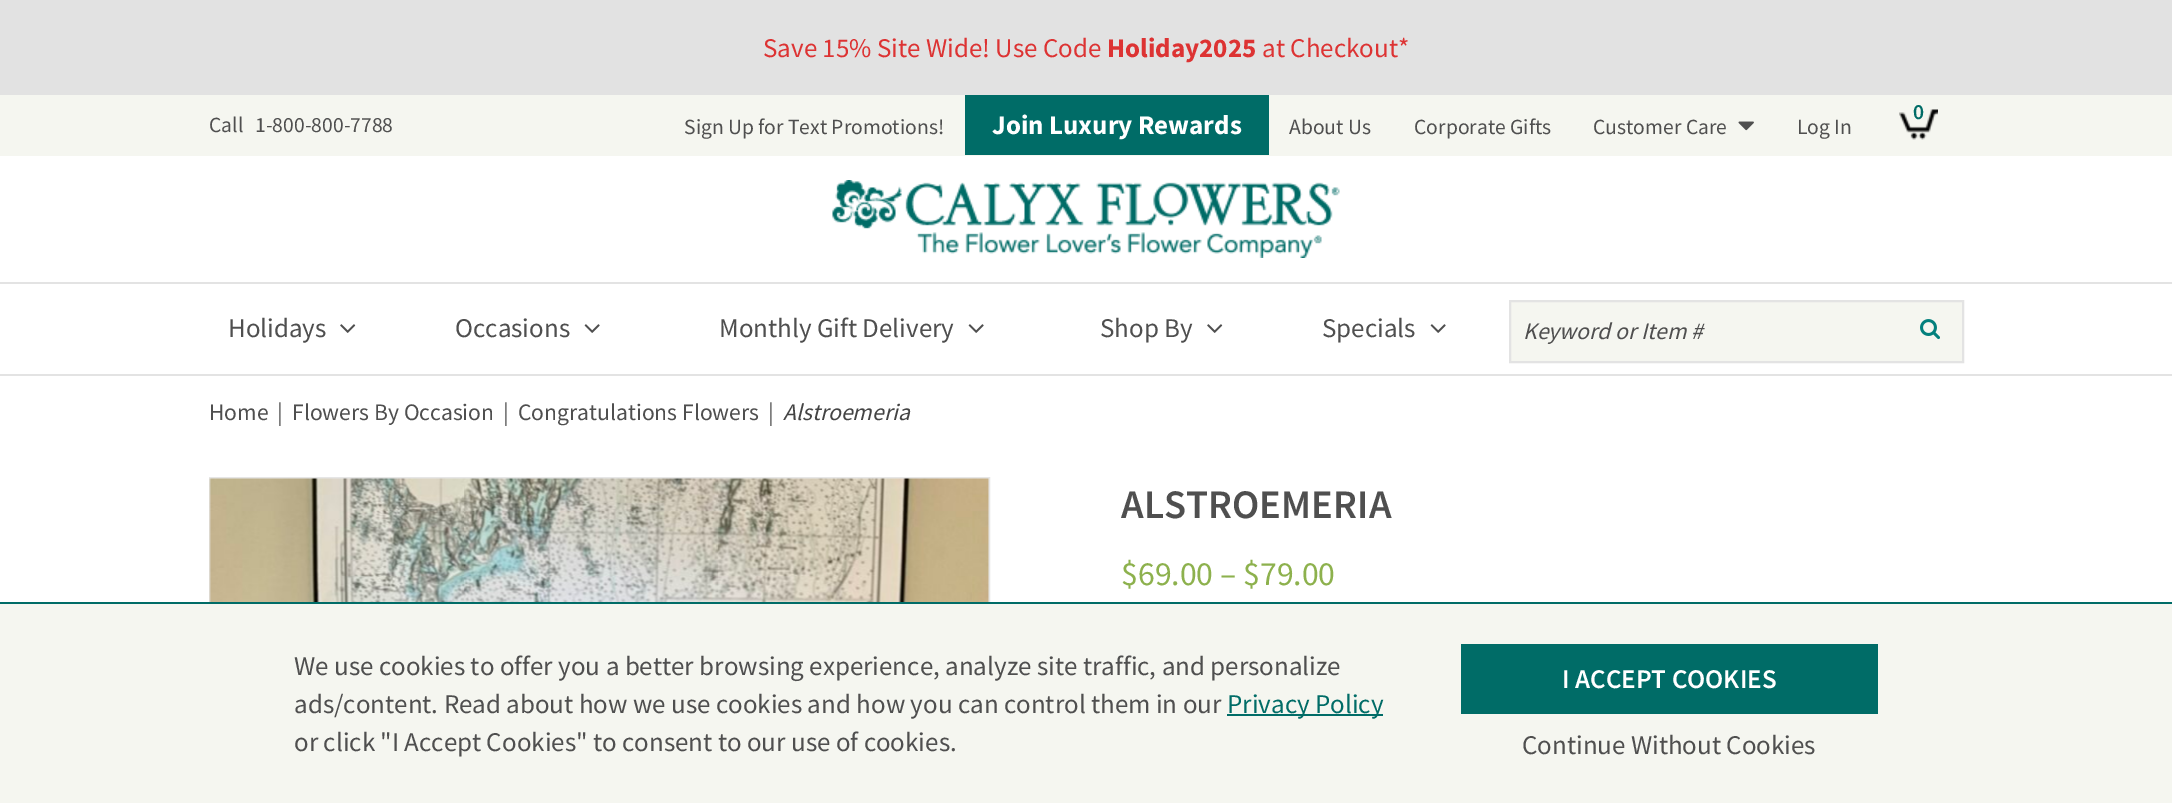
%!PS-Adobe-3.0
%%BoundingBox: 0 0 2172 803
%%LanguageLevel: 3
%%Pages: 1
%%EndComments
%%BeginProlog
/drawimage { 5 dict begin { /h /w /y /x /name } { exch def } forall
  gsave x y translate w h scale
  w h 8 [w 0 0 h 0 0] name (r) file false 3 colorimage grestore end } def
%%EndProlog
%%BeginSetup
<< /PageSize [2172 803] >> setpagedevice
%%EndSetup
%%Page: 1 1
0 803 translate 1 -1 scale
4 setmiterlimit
1 setgray
0 0 2172 803 rectfill
0.886 setgray
0 0 2172 95 rectfill
0.961 0.965 0.941 setrgbcolor
0 95 2172 61 rectfill
(images/1.raw) 1899 109 39 31 drawimage
0 0.424 0.404 setrgbcolor
965 95 304 60 rectfill
(images/2.raw) 1738 121 16 10 drawimage
(images/3.raw) 832 180 508 78 drawimage
0.89 setgray
0 282 2172 2 rectfill
0 374 2172 2 rectfill
(images/4.raw) 340 324 16 9 drawimage
(images/5.raw) 584 324 16 9 drawimage
(images/5.raw) 968 324 16 9 drawimage
(images/4.raw) 1207 324 16 9 drawimage
(images/5.raw) 1430 324 16 9 drawimage
0.961 0.965 0.941 setrgbcolor
newpath 1510 301 moveto 1963 301 lineto 1963 362 lineto 1510 362 lineto closepath gsave fill grestore
0.89 setgray
2 setlinewidth
stroke
(images/6.raw) 1920 319 20 21 drawimage
0.902 setgray
210 478 779 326 rectstroke
(images/7.raw) 209 478 780 124 drawimage
0.961 0.965 0.941 setrgbcolor
0 604 2172 199 rectfill
0 0.424 0.404 setrgbcolor
0 602 2172 2 rectfill
1227 714 156 2 rectfill
1461 644 417 70 rectfill
/SourceSansPro-Regular [27 0 0 -27 0 0] selectfont
0.867 0.2 0.2 setrgbcolor
763 57 moveto (Save 15% Site Wide! Use Code) show
/SourceSansPro-Bold [27 0 0 -27 0 0] selectfont
1107 57 moveto (Holiday2025) show
/SourceSansPro-Regular [27 0 0 -27 0 0] selectfont
1262 57 moveto (at Checkout*) show
/SourceSansPro-Regular [21.6 0 0 -21.6 0 0] selectfont
0.31 setgray
209 132 moveto (Call) show
255 132 moveto (1-800-800-7788) show
/SourceSansPro-SemiBold [21.6 0 0 -21.6 0 0] selectfont
0 0.424 0.404 setrgbcolor
1913 119 moveto (0) show
/SourceSansPro-Regular [21.6 0 0 -21.6 0 0] selectfont
0.31 setgray
684 134 moveto (Sign Up for Text Promotions!) show
/SourceSansPro-Bold [27 0 0 -27 0 0] selectfont
1 setgray
992 134 moveto (Join Luxury Rewards) show
/SourceSansPro-Regular [21.6 0 0 -21.6 0 0] selectfont
0.31 setgray
1289 134 moveto (About Us) show
1414 134 moveto (Corporate Gifts) show
1593 134 moveto (Customer Care) show
1797 134 moveto (Log In) show
/SourceSansPro-Regular [27 0 0 -27 0 0] selectfont
228 337 moveto (Holidays) show
455 337 moveto (Occasions) show
719 337 moveto (Monthly Gift Delivery) show
1100 337 moveto (Shop By) show
1322 337 moveto (Specials) show
/SourceSansPro-Italic [23.6 0 0 -23.6 0 0] selectfont
1523 339 moveto (Keyword or Item #) show
/SourceSansPro-Regular [23.6 0 0 -23.6 0 0] selectfont
209 420 moveto (Home) show
277 420 moveto (|) show
292 420 moveto (Flowers By Occasion) show
503 420 moveto (|) show
518 420 moveto (Congratulations Flowers) show
768 420 moveto (|) show
/SourceSansPro-Italic [23.6 0 0 -23.6 0 0] selectfont
0.267 setgray
783 420 moveto (Alstroemeria) show
/SourceSansPro-SemiBold [40.5 0 0 -40.5 0 0] selectfont
0.31 setgray
1121 518 moveto (ALSTROEMERIA) show
/SourceSansPro-Regular [33.75 0 0 -33.75 0 0] selectfont
0.553 0.694 0.302 setrgbcolor
1121 585 moveto ($69.00 – $79.00) show
/SourceSansPro-Regular [27 0 0 -27 0 0] selectfont
0.31 setgray
294 675 moveto (We use cookies to offer you a better browsing experience, analyze site traffic, and personalize) show
294 713 moveto (ads/content. Read about how we use cookies and how you can control them in our) show
0 0.424 0.404 setrgbcolor
1227 713 moveto (Privacy Policy) show
0.31 setgray
294 751 moveto (or click "I Accept Cookies" to consent to our use of cookies.) show
/SourceSansPro-SemiBold [27 0 0 -27 0 0] selectfont
1 setgray
1562 688 moveto (I ACCEPT COOKIES) show
/SourceSansPro-Regular [27 0 0 -27 0 0] selectfont
0.31 setgray
1522 754 moveto (Continue Without Cookies) show
showpage
%%EOF
